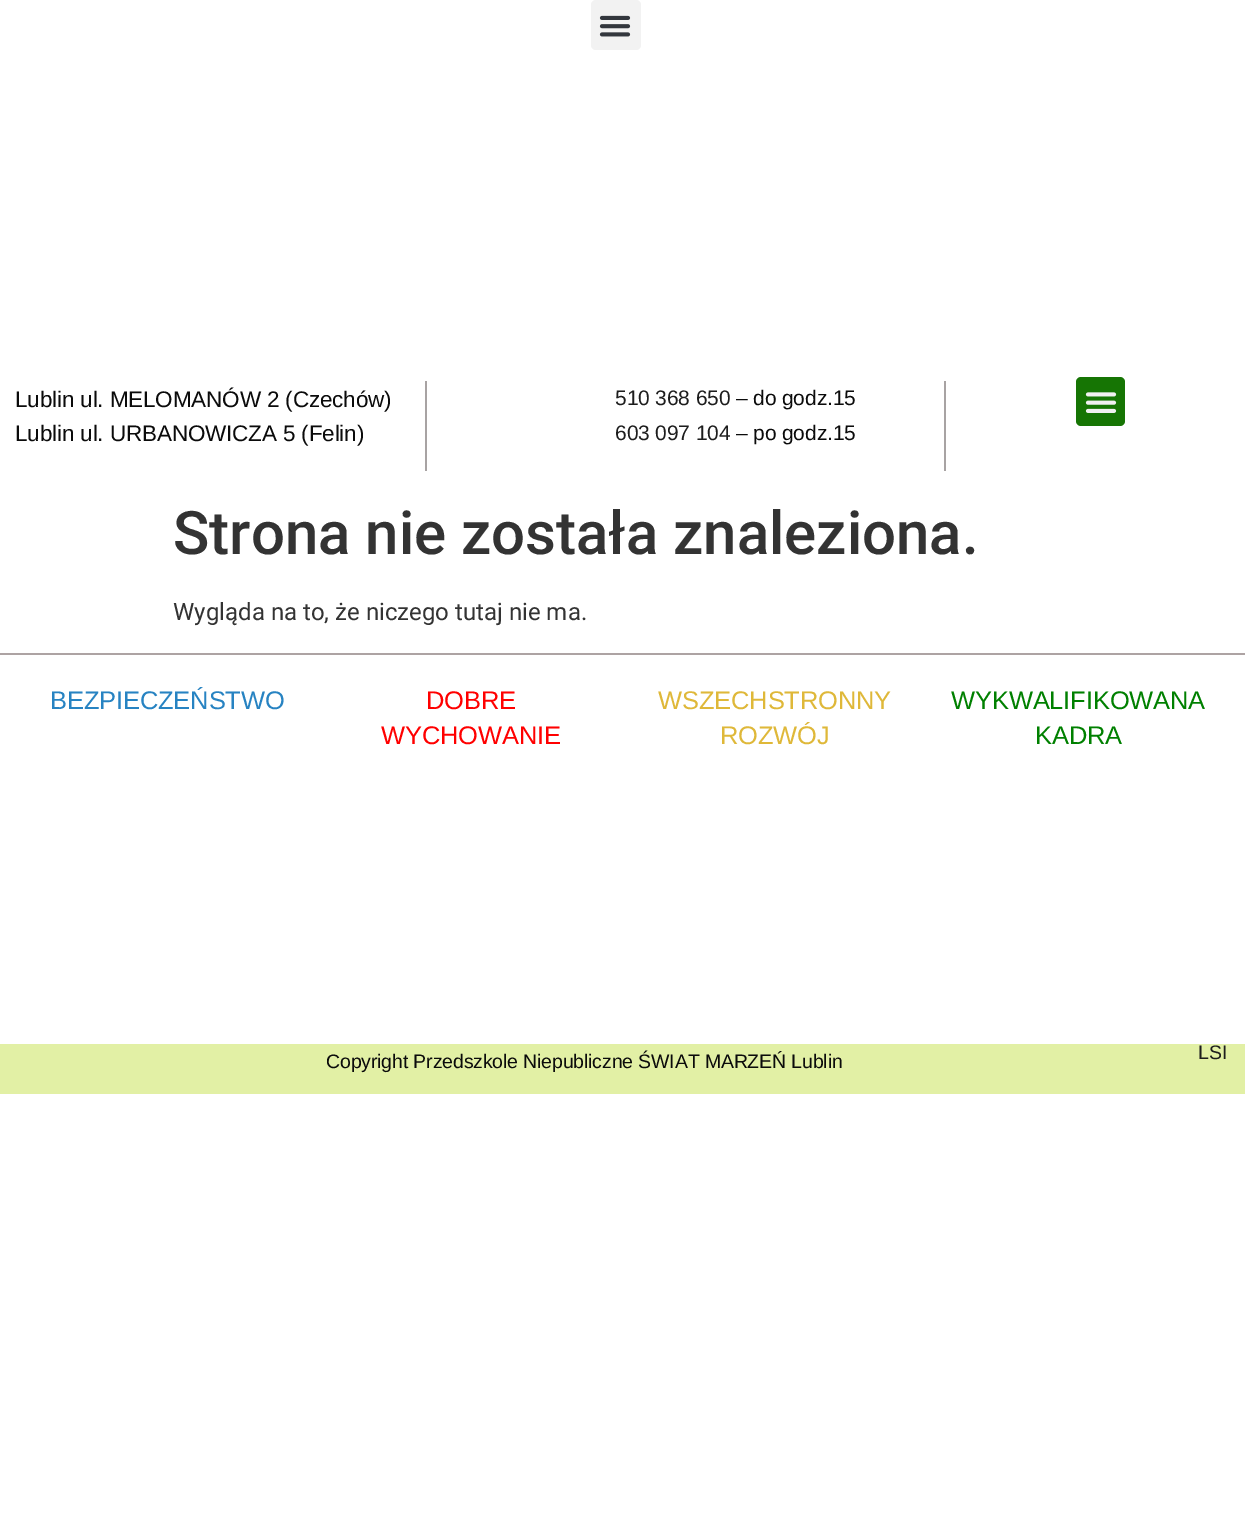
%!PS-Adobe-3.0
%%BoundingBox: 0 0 1245 1536
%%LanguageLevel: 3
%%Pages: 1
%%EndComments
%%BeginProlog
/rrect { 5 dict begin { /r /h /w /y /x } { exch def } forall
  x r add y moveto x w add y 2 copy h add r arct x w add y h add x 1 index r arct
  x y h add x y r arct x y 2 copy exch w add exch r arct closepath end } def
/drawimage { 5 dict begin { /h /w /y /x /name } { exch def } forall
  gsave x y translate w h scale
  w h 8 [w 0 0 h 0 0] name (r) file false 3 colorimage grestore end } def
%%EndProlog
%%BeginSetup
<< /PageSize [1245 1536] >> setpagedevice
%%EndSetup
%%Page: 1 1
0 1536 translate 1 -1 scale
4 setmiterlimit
1 setgray
0 0 1245 1536 rectfill
0.949 setgray
591 0 50 50 5 rrect fill
(images/1.raw) 599 15 32 22 drawimage
0.659 0.639 0.639 setrgbcolor
425 381 2 90 rectfill
944 381 2 90 rectfill
0.086 0.459 0.016 setrgbcolor
1076 377 49 49 5 rrect fill
(images/2.raw) 1085 392 32 21 drawimage
0.678 0.639 0.639 setrgbcolor
0 653 1245 2 rectfill
0.886 0.941 0.647 setrgbcolor
0 1044 1245 50 rectfill
/LiberationSans-Regular [22.5 0 0 -22.5 0 0] selectfont
0.043 setgray
15 407 moveto -0.15 0 (Lublin ul. MELOMANÓW 2 \(Czechów\)) ashow
15 441 moveto -0.15 0 (Lublin ul. URBANOWICZA 5 \(Felin\)) ashow
/LiberationSans-Regular [21 0 0 -21 0 0] selectfont
0.114 setgray
615 405 moveto -0.15 0 (510 368 650) ashow
0.043 setgray
736 405 moveto -0.15 0 (– do godz.15) ashow
0.114 setgray
615 440 moveto -0.15 0 (603 097 104) ashow
0.043 setgray
736 440 moveto -0.15 0 (– po godz.15) ashow
/Roboto-Medium [60 0 0 -60 0 0] selectfont
0.2 setgray
173 554 moveto (Strona nie została znaleziona.) show
/Roboto-Regular [24 0 0 -24 0 0] selectfont
173 620 moveto (Wygląda na to, że niczego tutaj nie ma.) show
/LiberationSans-Regular [25.5 0 0 -25.5 0 0] selectfont
0.153 0.514 0.761 setrgbcolor
50 709 moveto -0.15 0 (BEZPIECZEŃSTWO) ashow
1 0 0 setrgbcolor
426 709 moveto -0.15 0 (DOBRE) ashow
381 744 moveto -0.15 0 (WYCHOWANIE) ashow
0.875 0.722 0.224 setrgbcolor
658 709 moveto -0.15 0 (WSZECHSTRONNY) ashow
720 744 moveto -0.15 0 (ROZWÓJ) ashow
0 0.502 0 setrgbcolor
951 709 moveto -0.15 0 (WYKWALIFIKOWANA) ashow
1035 744 moveto -0.15 0 (KADRA) ashow
/LiberationSans-Regular [19.5 0 0 -19.5 0 0] selectfont
0.043 setgray
326 1068 moveto -0.15 0 (Copyright Przedszkole Niepubliczne ŚWIAT MARZEŃ Lublin) ashow
0.114 setgray
1198 1059 moveto -0.15 0 (LSI) ashow
showpage
%%EOF
